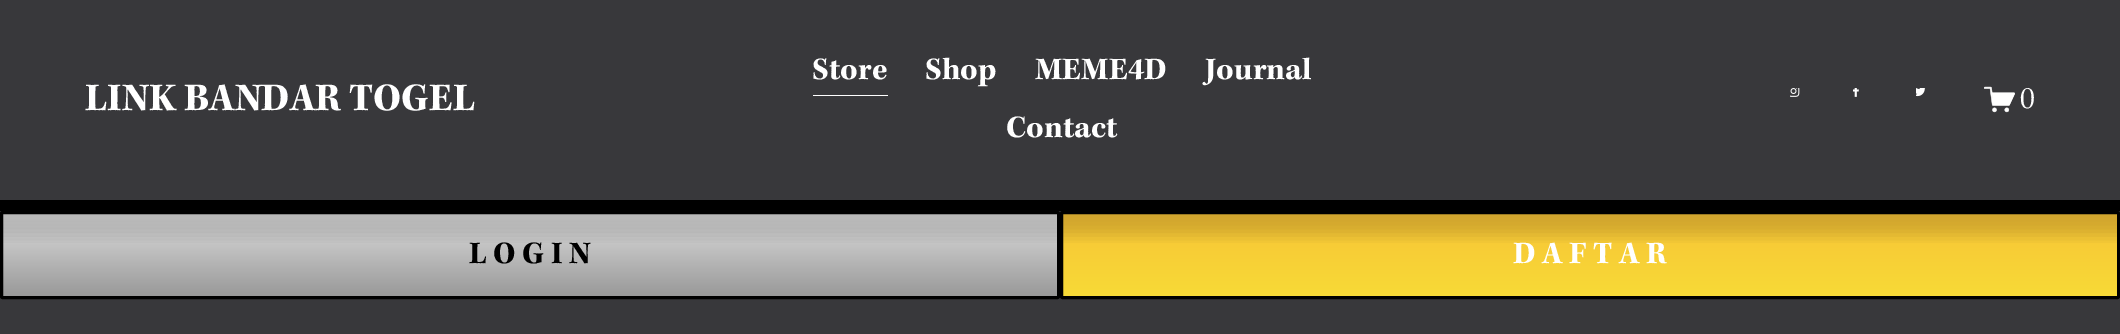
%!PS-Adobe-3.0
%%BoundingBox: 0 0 2120 334
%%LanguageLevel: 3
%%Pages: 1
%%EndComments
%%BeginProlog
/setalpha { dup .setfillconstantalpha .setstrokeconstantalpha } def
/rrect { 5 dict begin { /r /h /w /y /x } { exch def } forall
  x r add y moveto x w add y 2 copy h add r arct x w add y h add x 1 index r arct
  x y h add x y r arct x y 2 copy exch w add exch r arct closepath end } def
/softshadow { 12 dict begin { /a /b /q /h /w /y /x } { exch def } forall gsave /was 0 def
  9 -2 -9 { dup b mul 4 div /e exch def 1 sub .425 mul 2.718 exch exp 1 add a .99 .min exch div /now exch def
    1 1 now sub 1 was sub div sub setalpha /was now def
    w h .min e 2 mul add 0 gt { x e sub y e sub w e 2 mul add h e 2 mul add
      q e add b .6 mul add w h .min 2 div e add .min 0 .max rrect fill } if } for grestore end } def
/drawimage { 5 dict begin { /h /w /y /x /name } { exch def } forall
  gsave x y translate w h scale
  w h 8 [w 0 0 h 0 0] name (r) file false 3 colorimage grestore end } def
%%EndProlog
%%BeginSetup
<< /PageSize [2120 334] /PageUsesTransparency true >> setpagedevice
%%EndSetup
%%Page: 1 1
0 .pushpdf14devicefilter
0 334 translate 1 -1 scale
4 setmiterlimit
0.22 0.22 0.231 setrgbcolor
0 0 2120 334 rectfill
gsave newpath 3 214 moveto 1057 214 lineto 1057 296 lineto 3 296 lineto closepath clip newpath
<< /ShadingType 2 /ColorSpace /DeviceRGB /Coords [530 214 530 296] /Extend [true true] /Function << /FunctionType 2 /Domain [0 1] /C0 [0.867 0.867 0.867] /C1 [0.6 0.6 0.6] /N 1 >> >> shfill grestore
0 setgray
3 setlinewidth
1.5 212.5 1057 85 1 rrect stroke
gsave newpath 1063 214 moveto 2117 214 lineto 2117 296 lineto 1063 296 lineto closepath clip newpath
<< /ShadingType 2 /ColorSpace /DeviceRGB /Coords [1590 214 1590 296] /Extend [true true] /Function << /FunctionType 2 /Domain [0 1] /C0 [0.969 0.769 0.212] /C1 [0.969 0.855 0.212] /N 1 >> >> shfill grestore
1061.5 212.5 1057 85 1 rrect stroke
gsave
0 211 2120 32 rectclip
-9 6 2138 229 0 7.5 0.15 softshadow
grestore
1 setgray
813 95 75 1 rectfill
(images/1.raw) 1790 88 10 9 drawimage
(images/2.raw) 1853 88 6 9 drawimage
(images/3.raw) 1916 88 10 9 drawimage
(images/4.raw) 1984 86 31 27 drawimage
0 setgray
0 200 2120 11 rectfill
/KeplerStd-Bold [40 0 0 -40 0 0] selectfont
1 setgray
85 110 moveto (LINK BANDAR TOGEL) show
/KeplerStd-Bold [32 0 0 -32 0 0] selectfont
812 79 moveto (Store) show
925 79 moveto (Shop) show
1035 79 moveto (MEME4D) show
1205 79 moveto (Journal) show
1006 137 moveto (Contact) show
/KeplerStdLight-Light [32 0 0 -32 0 0] selectfont
2020 108 moveto (0) show
/KeplerStd-Bold [32 0 0 -32 0 0] selectfont
0 setgray
469 263 moveto (L O G I N) show
1 setgray
1513 263 moveto (D A F T A R) show
.poppdf14devicefilter showpage
%%EOF
